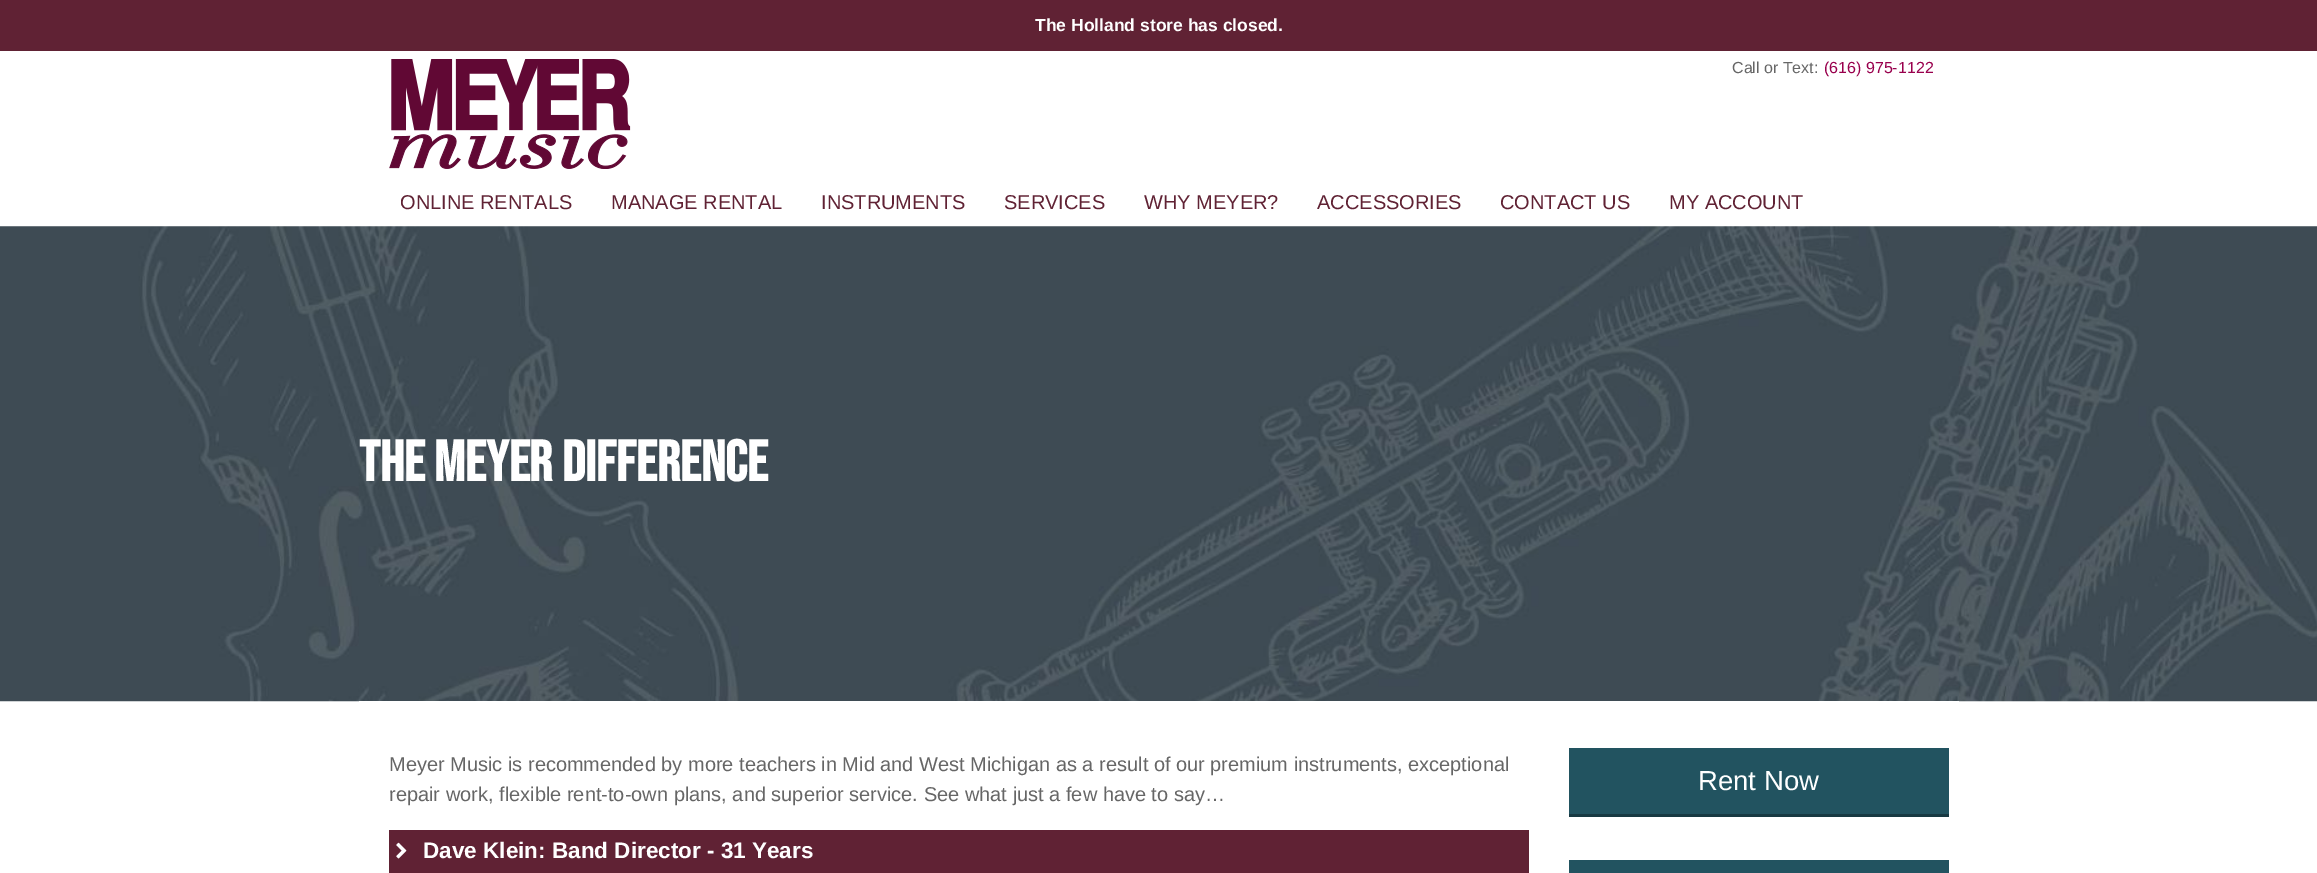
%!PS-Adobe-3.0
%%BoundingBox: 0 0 2317 873
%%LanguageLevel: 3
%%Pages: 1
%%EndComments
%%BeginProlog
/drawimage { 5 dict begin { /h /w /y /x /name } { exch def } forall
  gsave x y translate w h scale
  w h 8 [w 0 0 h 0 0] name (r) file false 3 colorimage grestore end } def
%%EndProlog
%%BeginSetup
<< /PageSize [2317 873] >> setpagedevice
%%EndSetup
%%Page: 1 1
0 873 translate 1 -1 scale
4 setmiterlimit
1 setgray
0 0 2317 873 rectfill
0.376 0.133 0.204 setrgbcolor
0 0 2317 51 rectfill
(images/1.raw) 389 59 242 110 drawimage
(images/2.raw) 0 226 2317 476 drawimage
1 setgray
359 701 1600 1 rectfill
0.376 0.133 0.204 setrgbcolor
389 830 1140 43 rectfill
(images/3.raw) 396 842 11 17 drawimage
0.133 0.325 0.376 setrgbcolor
1569 748 380 66 rectfill
0.094 0.224 0.259 setrgbcolor
1569 814 380 3 rectfill
0.133 0.325 0.376 setrgbcolor
1569 860 380 13 rectfill
/LiberationSans-Bold [17.5 0 0 -17.5 0 0] selectfont
1 setgray
1035 31 moveto (The Holland store has closed.) show
/LiberationSans-Regular [16 0 0 -16 0 0] selectfont
0.4 setgray
1732 73 moveto (Call or Text:) show
0.6 0 0.302 setrgbcolor
1824 73 moveto (\(616\) 975-1122) show
/LiberationSans-Regular [20 0 0 -20 0 0] selectfont
0.376 0.133 0.204 setrgbcolor
400 209 moveto (ONLINE RENTALS) show
611 209 moveto (MANAGE RENTAL) show
821 209 moveto (INSTRUMENTS) show
1004 209 moveto (SERVICES) show
1144 209 moveto (WHY MEYER?) show
1317 209 moveto (ACCESSORIES) show
1500 209 moveto (CONTACT US) show
1669 209 moveto (MY ACCOUNT) show
/BebasNeue-Bold [57.5 0 0 -57.5 0 0] selectfont
1 setgray
359 481 moveto (The Meyer Difference) show
/LiberationSans-Regular [20 0 0 -20 0 0] selectfont
0.4 setgray
389 771 moveto (Meyer Music is recommended by more teachers in Mid and West Michigan as a result of our premium instruments, exceptional) show
389 801 moveto (repair work, flexible rent-to-own plans, and superior service. See what just a few have to say…) show
/LiberationSans-Bold [22.5 0 0 -22.5 0 0] selectfont
1 setgray
423 858 moveto (Dave Klein: Band Director - 31 Years) show
/LiberationSans-Regular [27.5 0 0 -27.5 0 0] selectfont
1698 790 moveto (Rent Now) show
showpage
%%EOF
